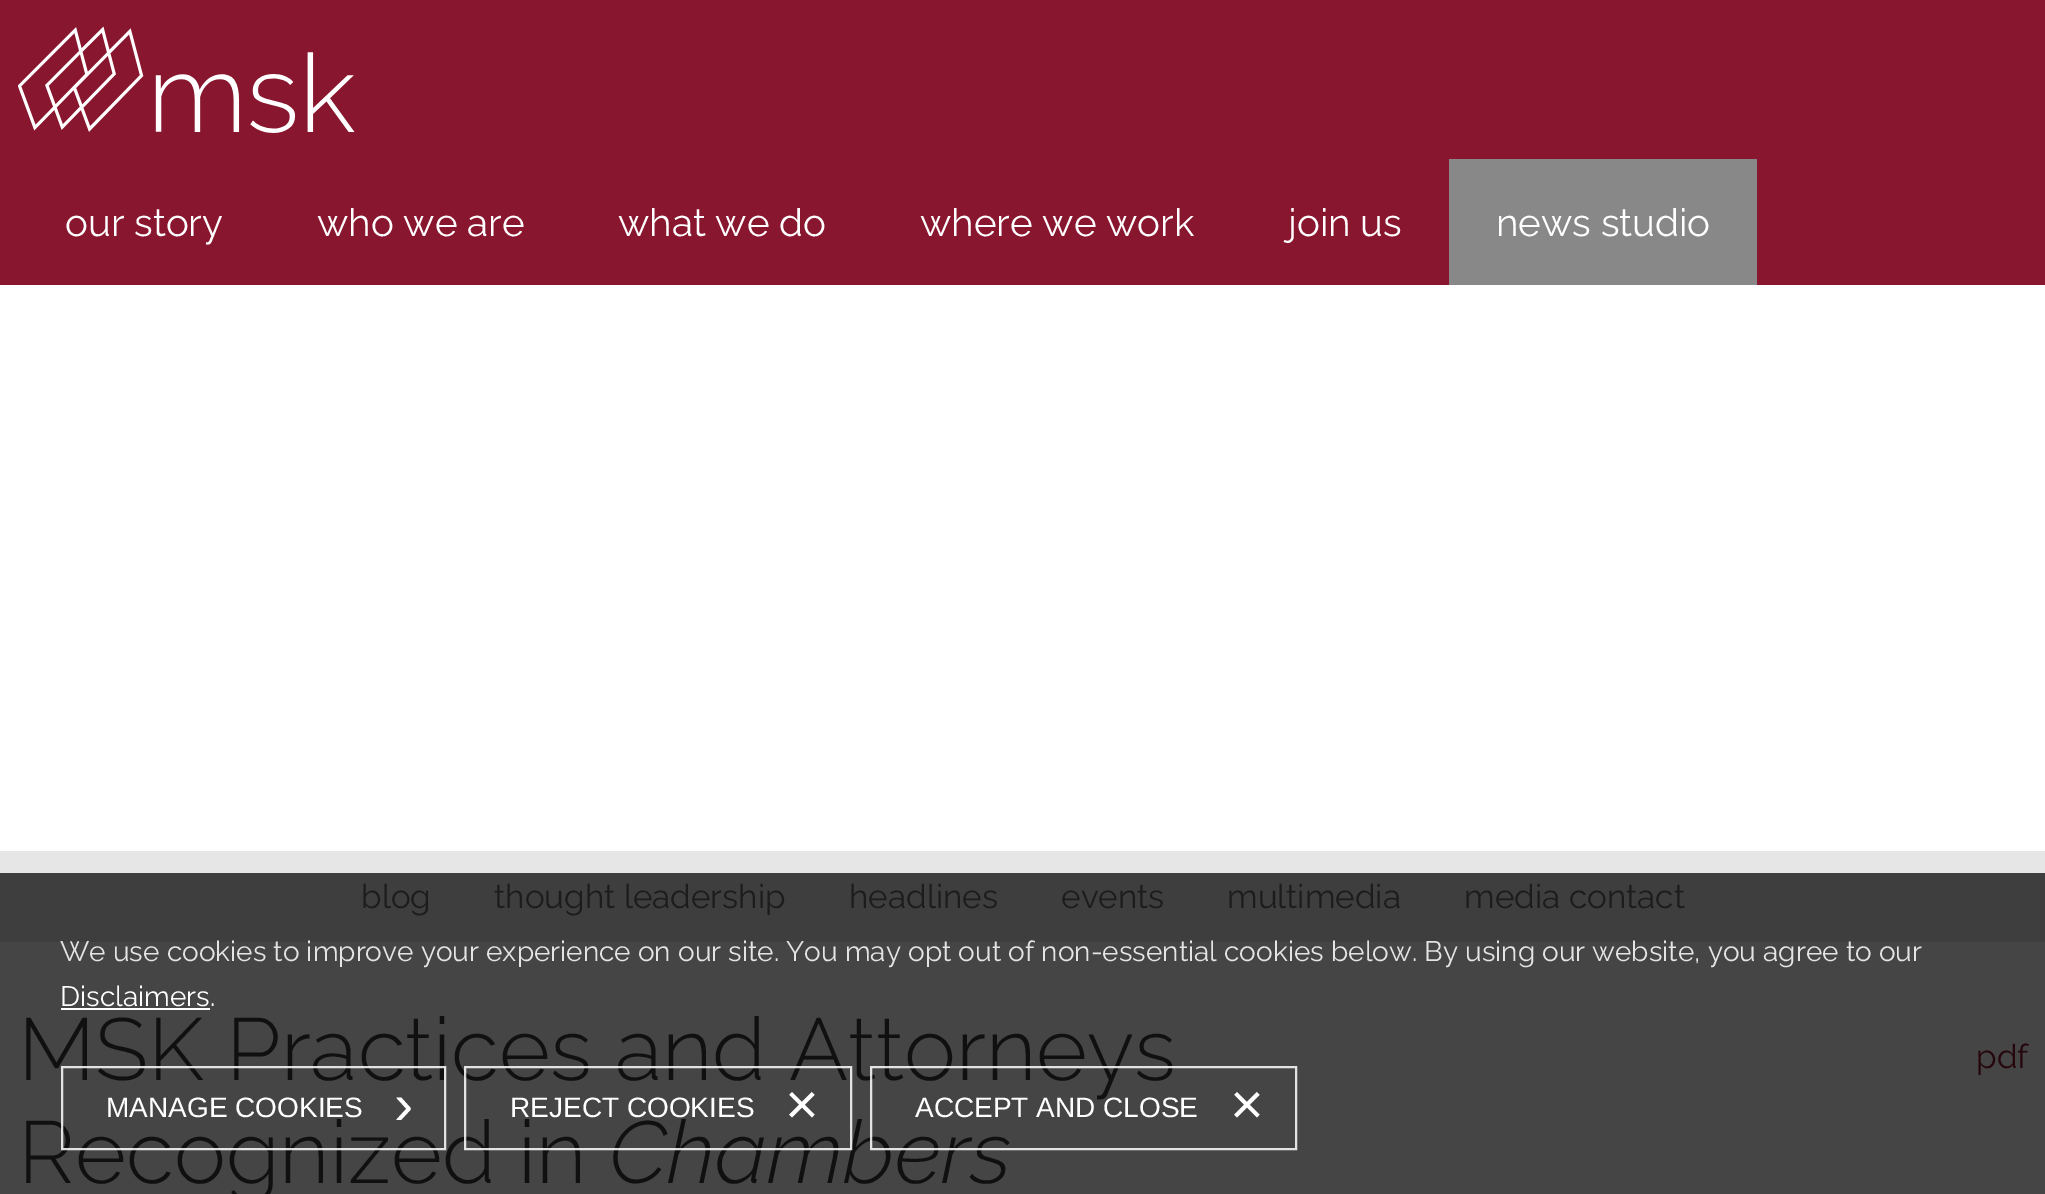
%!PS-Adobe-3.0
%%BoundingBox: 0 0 2045 1194
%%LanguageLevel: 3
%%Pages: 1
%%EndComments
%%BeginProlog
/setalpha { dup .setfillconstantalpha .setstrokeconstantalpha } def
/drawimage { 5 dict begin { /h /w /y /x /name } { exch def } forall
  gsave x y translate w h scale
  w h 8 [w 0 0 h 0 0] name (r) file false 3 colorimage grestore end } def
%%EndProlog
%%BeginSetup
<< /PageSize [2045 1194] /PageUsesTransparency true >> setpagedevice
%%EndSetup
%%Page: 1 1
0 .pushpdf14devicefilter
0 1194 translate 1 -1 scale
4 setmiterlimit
1 setgray
0 0 2045 1194 rectfill
0.271 setgray
0 942 2045 252 rectfill
0.533 0.086 0.18 setrgbcolor
0 0 2045 285 rectfill
(images/1.raw) 18 26 337 107 drawimage
0.537 0.533 0.533 setrgbcolor
1449 159 308 126 rectfill
0.902 setgray
0 851 2045 22 rectfill
0.243 setgray
0 873 2045 69 rectfill
1 setgray
61 1008 149 2 rectfill
/Raleway-Regular [38.5 0 0 -38.5 0 0] selectfont
65 236 moveto (our story) show
317 236 moveto (who we are) show
618 236 moveto (what we do) show
920 236 moveto (where we work) show
1288 236 moveto (join us) show
1496 236 moveto (news studio) show
/Raleway-Regular [33.25 0 0 -33.25 0 0] selectfont
0.11 setgray
361 908 moveto (blog) show
494 908 moveto (thought leadership) show
849 908 moveto (headlines) show
1061 908 moveto (events) show
1227 908 moveto (multimedia) show
1464 908 moveto (media contact) show
/Raleway-Regular [28 0 0 -28 0 0] selectfont
0.894 setgray
60 961 moveto (We use cookies to improve your experience on our site. You may opt out of non-essential cookies below. By using our website, you agree to our) show
1 setgray
60 1006 moveto (Disclaimers.) show
/Raleway-Light [87.6 0 0 -87.6 0 0] selectfont
0.063 setgray
18 1080 moveto (MSK Practices and Attorneys) show
18 1183 moveto (Recognized in) show
0.85 setalpha
1 setgray
2 setlinewidth
62 1067 383 82 rectstroke
/LiberationSans-Regular [58 0 0 -58 0 0] selectfont
1 setalpha
394 1124 moveto (›) show
/LiberationSans-Regular [28 0 0 -28 0 0] selectfont
106 1117 moveto (MANAGE COOKIES) show
/Raleway-LightItalic [87.6 0 0 -87.6 0 0] selectfont
0.063 setgray
609 1183 moveto (Chambers) show
0.85 setalpha
1 setgray
871 1067 425 82 rectstroke
/LiberationSans-Regular [58 0 0 -58 0 0] selectfont
1 setalpha
1230 1124 moveto (×) show
/LiberationSans-Regular [28 0 0 -28 0 0] selectfont
915 1117 moveto (ACCEPT AND CLOSE) show
0.85 setalpha
465 1067 386 82 rectstroke
/LiberationSans-Regular [58 0 0 -58 0 0] selectfont
1 setalpha
785 1124 moveto (×) show
/LiberationSans-Regular [28 0 0 -28 0 0] selectfont
510 1117 moveto (REJECT COOKIES) show
/Raleway-Regular [33.25 0 0 -33.25 0 0] selectfont
0.145 0.024 0.047 setrgbcolor
1976 1068 moveto (pdf) show
.poppdf14devicefilter showpage
%%EOF
